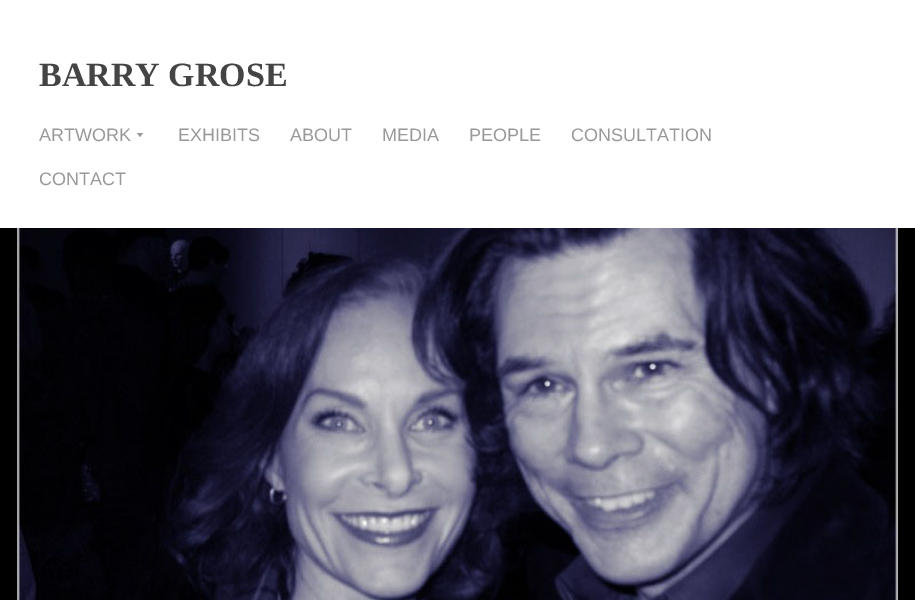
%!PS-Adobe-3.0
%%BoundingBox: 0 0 915 600
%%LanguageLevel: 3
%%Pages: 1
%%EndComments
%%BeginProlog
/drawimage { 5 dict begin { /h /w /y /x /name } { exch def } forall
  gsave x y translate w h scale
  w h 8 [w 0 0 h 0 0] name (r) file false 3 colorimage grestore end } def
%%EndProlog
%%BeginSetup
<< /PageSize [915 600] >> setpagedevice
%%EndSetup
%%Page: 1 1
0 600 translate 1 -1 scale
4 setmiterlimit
1 setgray
0 0 915 600 rectfill
0.6 setgray
newpath 137 133 moveto 143 133 lineto 140 137 lineto closepath fill
(images/1.raw) 0 228 915 372 drawimage
/LiberationSerif-Bold [34 0 0 -34 0 0] selectfont
0.267 setgray
39 86 moveto (BARRY GROSE) show
/LiberationSans-Regular [18 0 0 -18 0 0] selectfont
0.6 setgray
39 141 moveto (ARTWORK) show
178 141 moveto (EXHIBITS) show
290 141 moveto (ABOUT) show
382 141 moveto (MEDIA) show
469 141 moveto (PEOPLE) show
571 141 moveto (CONSULTATION) show
39 185 moveto (CONTACT) show
showpage
%%EOF
